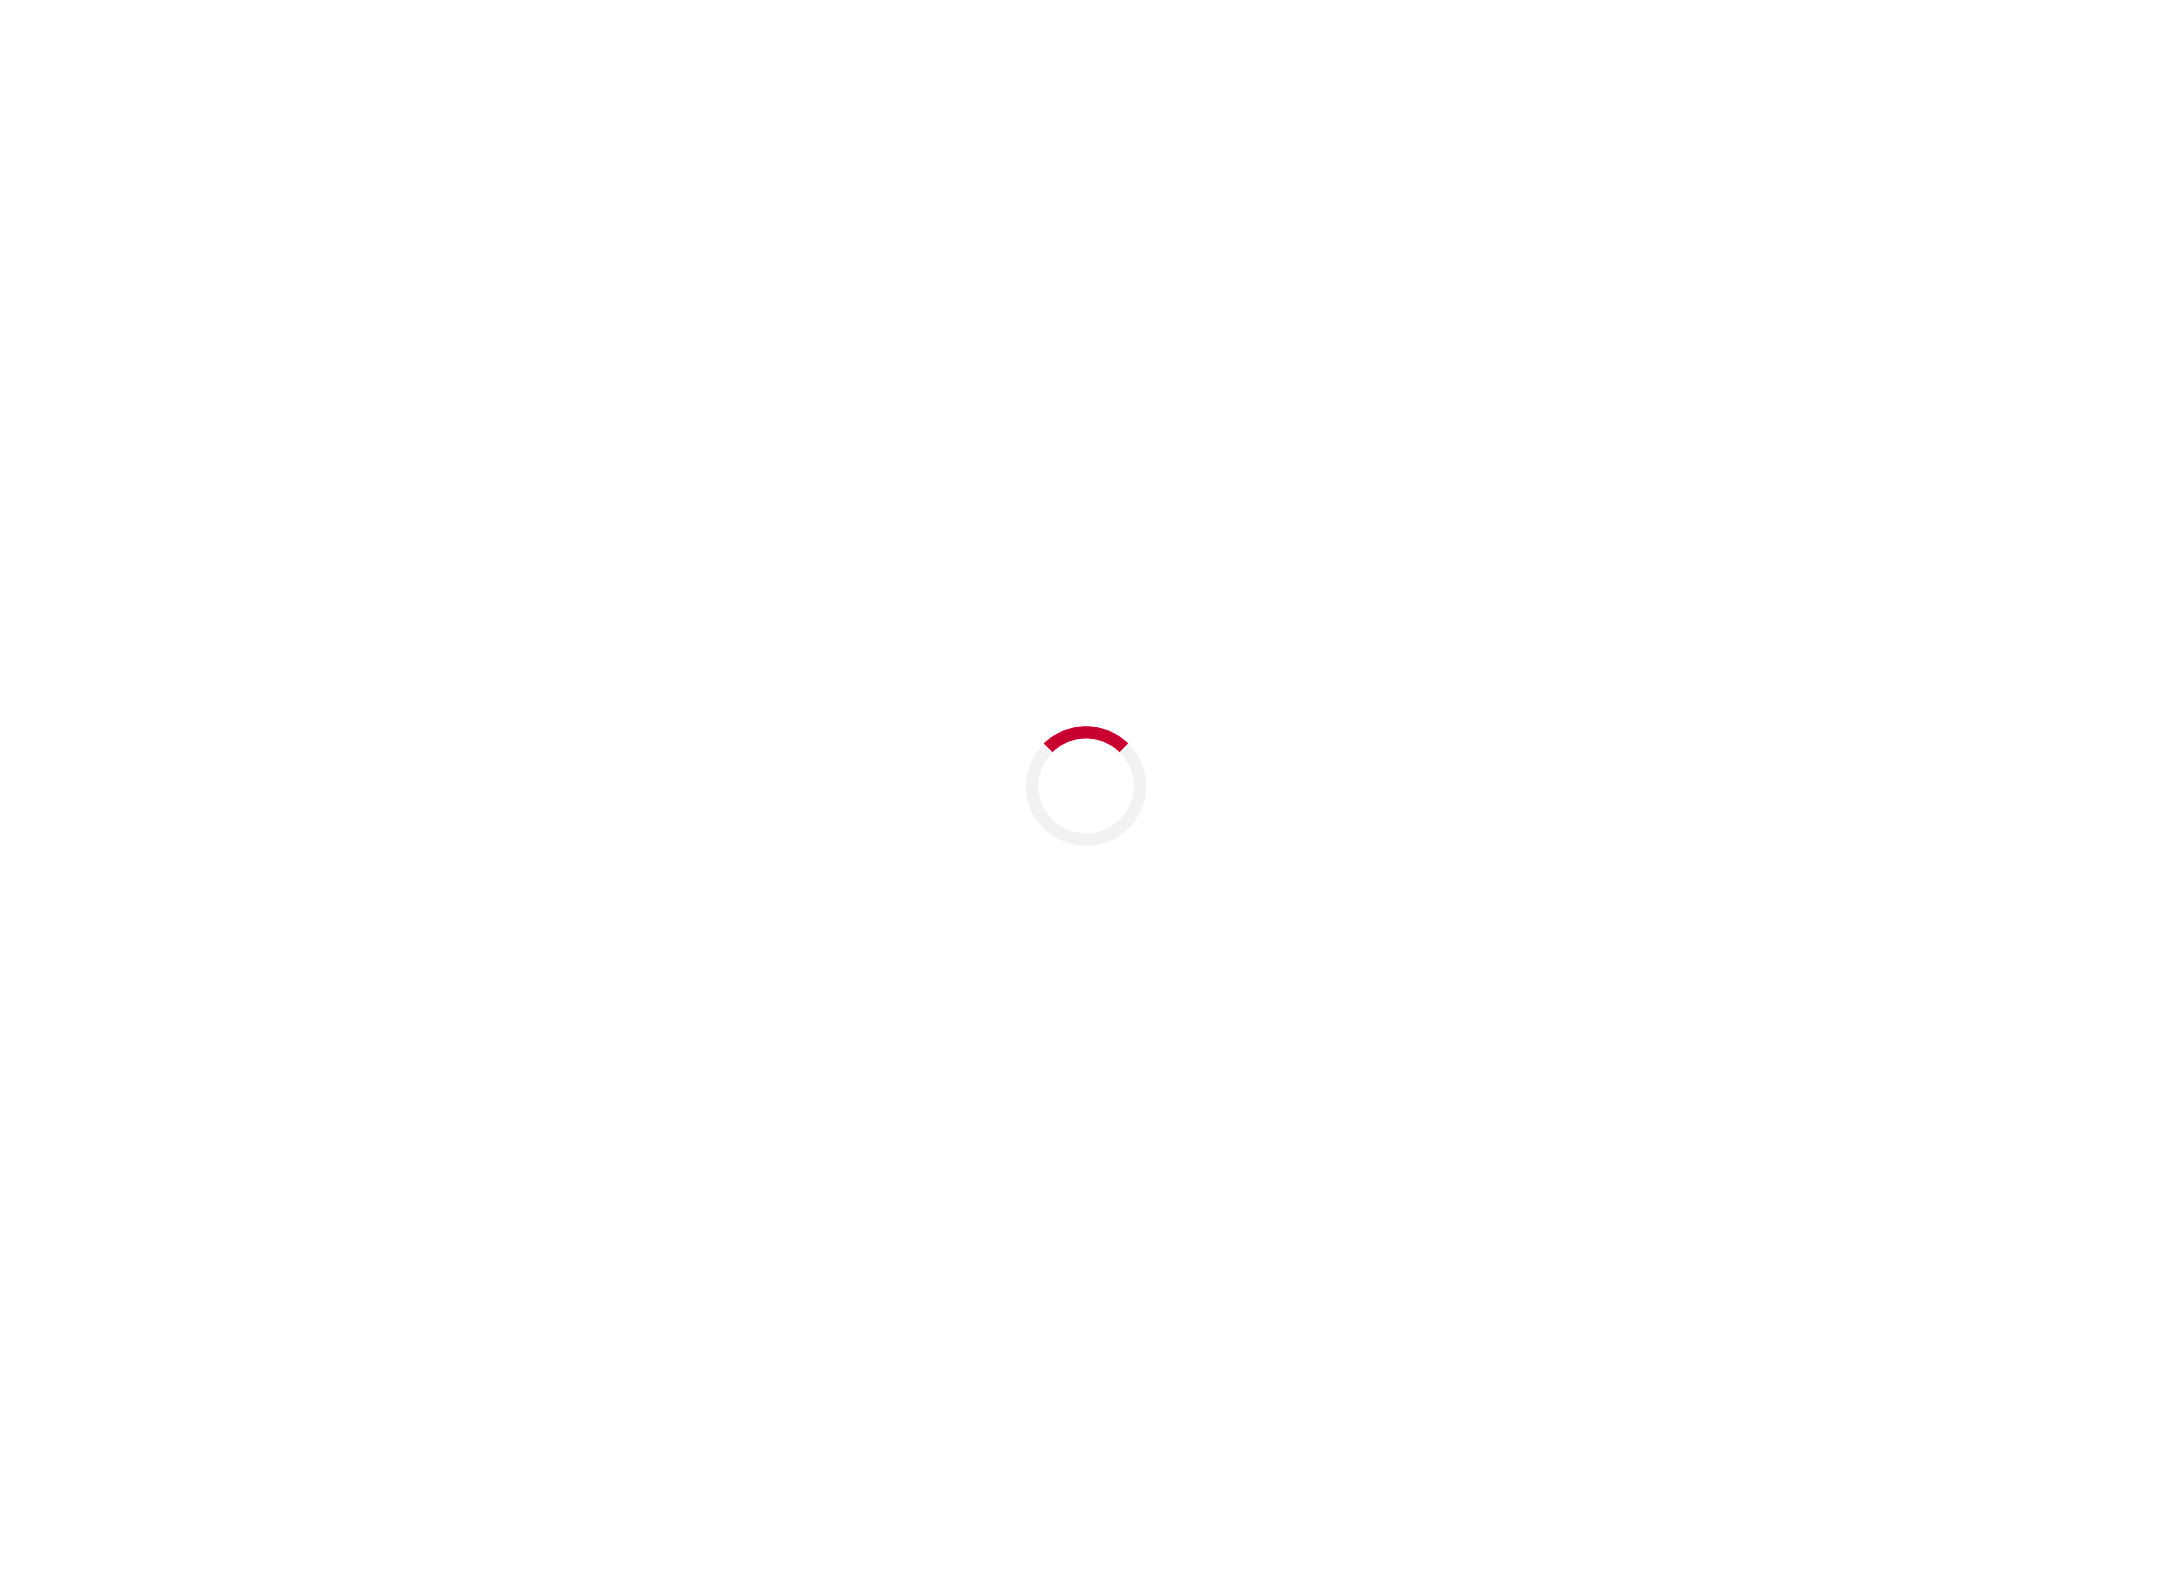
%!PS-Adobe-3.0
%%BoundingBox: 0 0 2172 1572
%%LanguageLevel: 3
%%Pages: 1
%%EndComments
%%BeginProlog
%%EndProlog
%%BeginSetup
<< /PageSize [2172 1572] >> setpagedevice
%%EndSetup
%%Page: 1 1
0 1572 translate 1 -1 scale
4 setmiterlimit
1 setgray
0 0 2172 1572 rectfill
0.784 0 0.196 setrgbcolor
12 setlinewidth
newpath 1048 748 moveto 1068.5 727 1103.5 727 1124 748 curveto stroke
0.949 setgray
newpath 1124 748 moveto 1137 760.5 1142.5 779 1139 796.5 curveto 1137 807 1131.5 816.5 1124 824 curveto 1090.5 858 1032 833.5 1032 786 curveto 1032 772 1038 758 1048 748 curveto stroke
showpage
%%EOF
